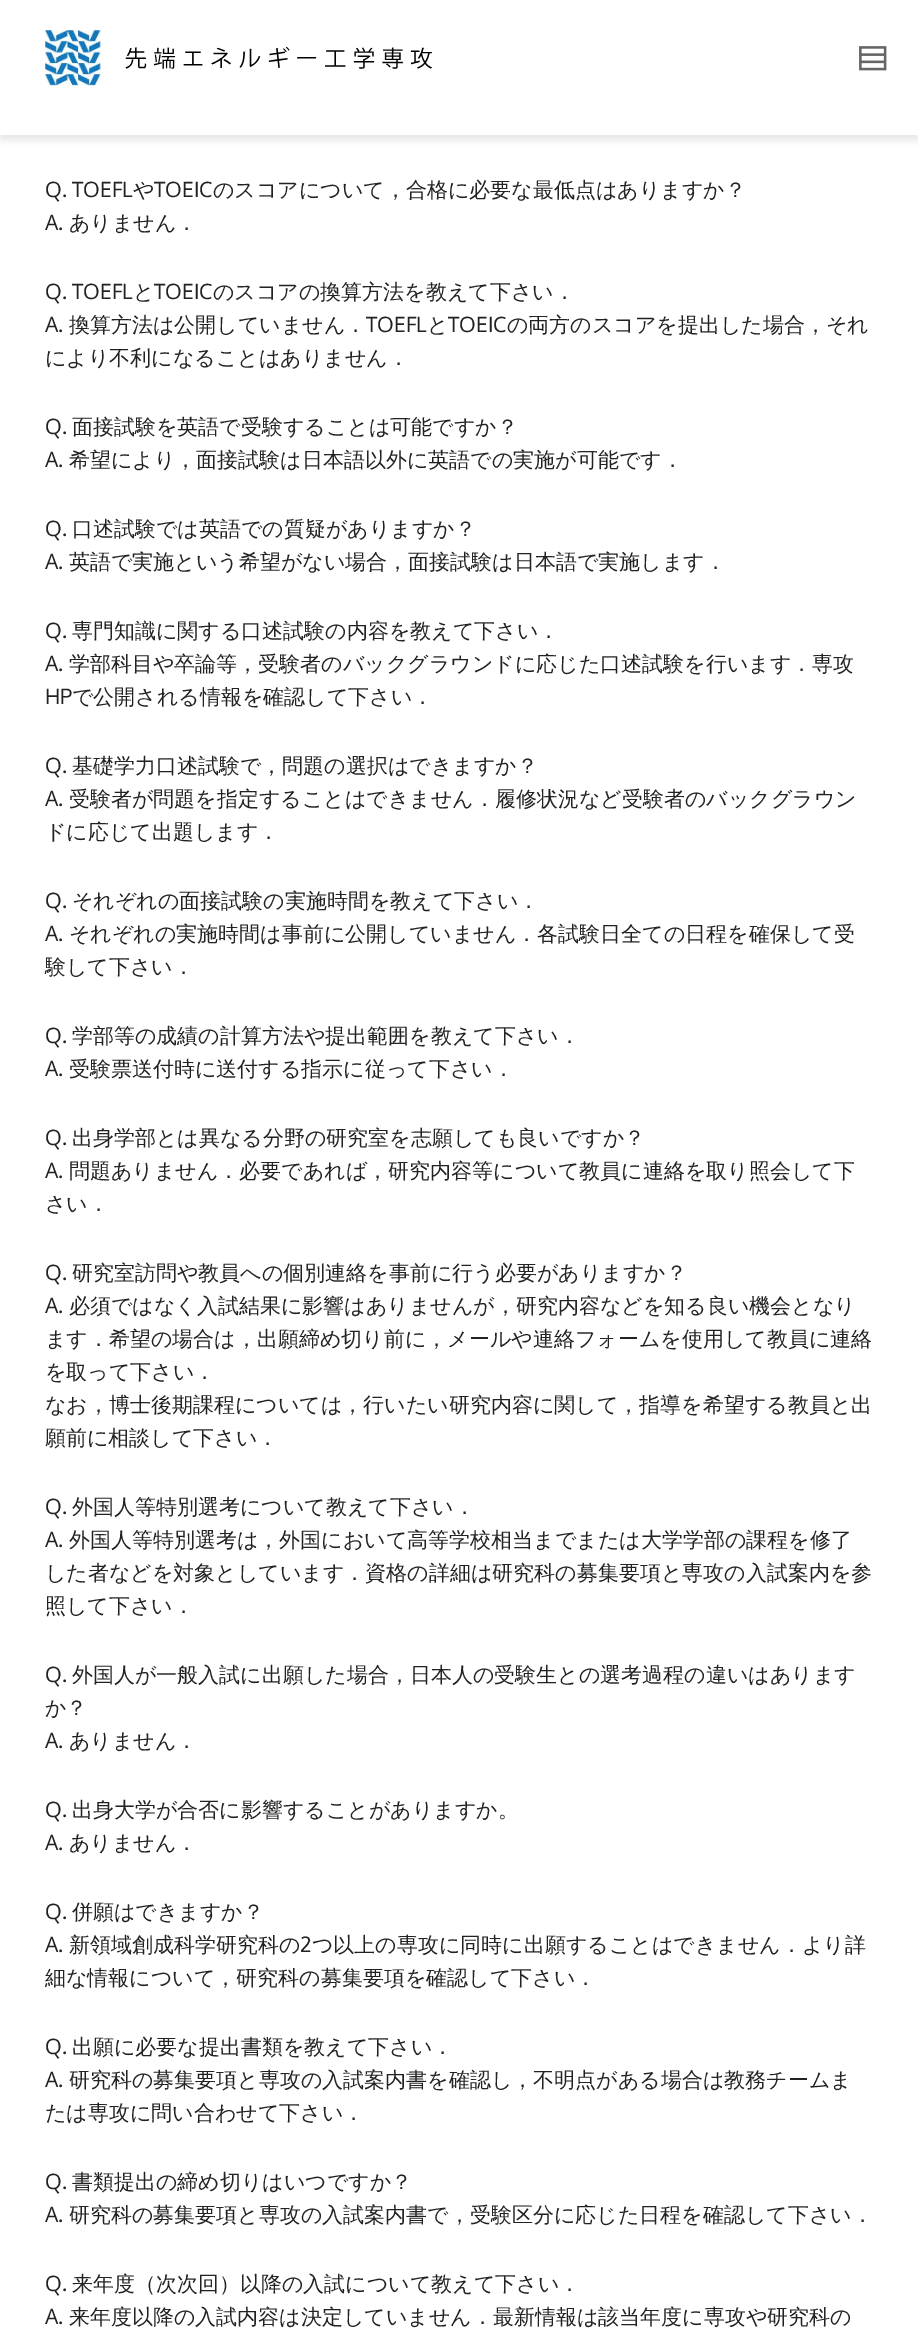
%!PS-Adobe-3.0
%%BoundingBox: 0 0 918 2330
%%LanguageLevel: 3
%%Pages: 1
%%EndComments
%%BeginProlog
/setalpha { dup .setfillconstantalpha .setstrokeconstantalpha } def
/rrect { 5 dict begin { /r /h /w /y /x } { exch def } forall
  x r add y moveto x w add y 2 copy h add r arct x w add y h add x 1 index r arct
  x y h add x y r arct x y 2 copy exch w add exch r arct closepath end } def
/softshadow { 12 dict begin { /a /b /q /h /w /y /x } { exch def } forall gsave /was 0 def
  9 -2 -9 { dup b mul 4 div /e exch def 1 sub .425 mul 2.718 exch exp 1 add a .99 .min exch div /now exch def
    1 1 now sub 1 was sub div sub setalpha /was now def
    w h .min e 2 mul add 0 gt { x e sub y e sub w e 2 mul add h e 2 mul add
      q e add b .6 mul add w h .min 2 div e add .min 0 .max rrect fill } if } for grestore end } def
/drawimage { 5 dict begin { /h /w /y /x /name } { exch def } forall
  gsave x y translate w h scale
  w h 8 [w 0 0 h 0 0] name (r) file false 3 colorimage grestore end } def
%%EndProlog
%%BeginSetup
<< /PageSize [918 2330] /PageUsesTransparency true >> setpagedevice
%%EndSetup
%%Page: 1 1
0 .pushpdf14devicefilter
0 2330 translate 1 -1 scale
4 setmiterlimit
1 setgray
0 0 918 2330 rectfill
0 setgray
0 5 918 135 0 4 0.1 softshadow
1 setgray
0 0 918 135 rectfill
(images/1.raw) 45 30 387 56 drawimage
(images/2.raw) 859 46 28 25 drawimage
/Oxygen-Regular [21 0 0 -21 0 0] selectfont
0.133 setgray
45 197 moveto (Q. TOEFL) show
/WenQuanYiZenHei-Medium [21 0 0 -21 0 0] selectfont
133 197 moveto (や) show
/Oxygen-Regular [21 0 0 -21 0 0] selectfont
154 197 moveto (TOEIC) show
/WenQuanYiZenHei-Medium [21 0 0 -21 0 0] selectfont
213 197 moveto (のスコアについて，合格に必要な最低点はありますか？) show
/Oxygen-Regular [21 0 0 -21 0 0] selectfont
45 230 moveto (A.) show
/WenQuanYiZenHei-Medium [21 0 0 -21 0 0] selectfont
69 230 moveto (ありません．) show
/Oxygen-Regular [21 0 0 -21 0 0] selectfont
45 299 moveto (Q. TOEFL) show
/WenQuanYiZenHei-Medium [21 0 0 -21 0 0] selectfont
133 299 moveto (と) show
/Oxygen-Regular [21 0 0 -21 0 0] selectfont
154 299 moveto (TOEIC) show
/WenQuanYiZenHei-Medium [21 0 0 -21 0 0] selectfont
213 299 moveto (のスコアの換算方法を教えて下さい．) show
/Oxygen-Regular [21 0 0 -21 0 0] selectfont
45 332 moveto (A.) show
/WenQuanYiZenHei-Medium [21 0 0 -21 0 0] selectfont
69 332 moveto (換算方法は公開していません．) show
/Oxygen-Regular [21 0 0 -21 0 0] selectfont
366 332 moveto (TOEFL) show
/WenQuanYiZenHei-Medium [21 0 0 -21 0 0] selectfont
427 332 moveto (と) show
/Oxygen-Regular [21 0 0 -21 0 0] selectfont
448 332 moveto (TOEIC) show
/WenQuanYiZenHei-Medium [21 0 0 -21 0 0] selectfont
507 332 moveto (の両方のスコアを提出した場合，それ) show
45 365 moveto (により不利になることはありません．) show
/Oxygen-Regular [21 0 0 -21 0 0] selectfont
45 434 moveto (Q.) show
/WenQuanYiZenHei-Medium [21 0 0 -21 0 0] selectfont
72 434 moveto (面接試験を英語で受験することは可能ですか？) show
/Oxygen-Regular [21 0 0 -21 0 0] selectfont
45 467 moveto (A.) show
/WenQuanYiZenHei-Medium [21 0 0 -21 0 0] selectfont
69 467 moveto (希望により，面接試験は日本語以外に英語での実施が可能です．) show
/Oxygen-Regular [21 0 0 -21 0 0] selectfont
45 536 moveto (Q.) show
/WenQuanYiZenHei-Medium [21 0 0 -21 0 0] selectfont
72 536 moveto (口述試験では英語での質疑がありますか？) show
/Oxygen-Regular [21 0 0 -21 0 0] selectfont
45 569 moveto (A.) show
/WenQuanYiZenHei-Medium [21 0 0 -21 0 0] selectfont
69 569 moveto (英語で実施という希望がない場合，面接試験は日本語で実施します．) show
/Oxygen-Regular [21 0 0 -21 0 0] selectfont
45 638 moveto (Q.) show
/WenQuanYiZenHei-Medium [21 0 0 -21 0 0] selectfont
72 638 moveto (専門知識に関する口述試験の内容を教えて下さい．) show
/Oxygen-Regular [21 0 0 -21 0 0] selectfont
45 671 moveto (A.) show
/WenQuanYiZenHei-Medium [21 0 0 -21 0 0] selectfont
69 671 moveto (学部科目や卒論等，受験者のバックグラウンドに応じた口述試験を行います．専攻) show
/Oxygen-Regular [21 0 0 -21 0 0] selectfont
45 704 moveto (HP) show
/WenQuanYiZenHei-Medium [21 0 0 -21 0 0] selectfont
72 704 moveto (で公開される情報を確認して下さい．) show
/Oxygen-Regular [21 0 0 -21 0 0] selectfont
45 773 moveto (Q.) show
/WenQuanYiZenHei-Medium [21 0 0 -21 0 0] selectfont
72 773 moveto (基礎学力口述試験で，問題の選択はできますか？) show
/Oxygen-Regular [21 0 0 -21 0 0] selectfont
45 806 moveto (A.) show
/WenQuanYiZenHei-Medium [21 0 0 -21 0 0] selectfont
69 806 moveto (受験者が問題を指定することはできません．履修状況など受験者のバックグラウン) show
45 839 moveto (ドに応じて出題します．) show
/Oxygen-Regular [21 0 0 -21 0 0] selectfont
45 908 moveto (Q.) show
/WenQuanYiZenHei-Medium [21 0 0 -21 0 0] selectfont
72 908 moveto (それぞれの面接試験の実施時間を教えて下さい．) show
/Oxygen-Regular [21 0 0 -21 0 0] selectfont
45 941 moveto (A.) show
/WenQuanYiZenHei-Medium [21 0 0 -21 0 0] selectfont
69 941 moveto (それぞれの実施時間は事前に公開していません．各試験日全ての日程を確保して受) show
45 974 moveto (験して下さい．) show
/Oxygen-Regular [21 0 0 -21 0 0] selectfont
45 1043 moveto (Q.) show
/WenQuanYiZenHei-Medium [21 0 0 -21 0 0] selectfont
72 1043 moveto (学部等の成績の計算方法や提出範囲を教えて下さい．) show
/Oxygen-Regular [21 0 0 -21 0 0] selectfont
45 1076 moveto (A.) show
/WenQuanYiZenHei-Medium [21 0 0 -21 0 0] selectfont
69 1076 moveto (受験票送付時に送付する指示に従って下さい．) show
/Oxygen-Regular [21 0 0 -21 0 0] selectfont
45 1145 moveto (Q.) show
/WenQuanYiZenHei-Medium [21 0 0 -21 0 0] selectfont
72 1145 moveto (出身学部とは異なる分野の研究室を志願しても良いですか？) show
/Oxygen-Regular [21 0 0 -21 0 0] selectfont
45 1178 moveto (A.) show
/WenQuanYiZenHei-Medium [21 0 0 -21 0 0] selectfont
69 1178 moveto (問題ありません．必要であれば，研究内容等について教員に連絡を取り照会して下) show
45 1211 moveto (さい．) show
/Oxygen-Regular [21 0 0 -21 0 0] selectfont
45 1280 moveto (Q.) show
/WenQuanYiZenHei-Medium [21 0 0 -21 0 0] selectfont
72 1280 moveto (研究室訪問や教員への個別連絡を事前に行う必要がありますか？) show
/Oxygen-Regular [21 0 0 -21 0 0] selectfont
45 1313 moveto (A.) show
/WenQuanYiZenHei-Medium [21 0 0 -21 0 0] selectfont
69 1313 moveto (必須ではなく入試結果に影響はありませんが，研究内容などを知る良い機会となり) show
45 1346 moveto (ます．希望の場合は，出願締め切り前に，メールや連絡フォームを使用して教員に連絡) show
45 1379 moveto (を取って下さい．) show
45 1412 moveto (なお，博士後期課程については，行いたい研究内容に関して，指導を希望する教員と出) show
45 1445 moveto (願前に相談して下さい．) show
/Oxygen-Regular [21 0 0 -21 0 0] selectfont
45 1514 moveto (Q.) show
/WenQuanYiZenHei-Medium [21 0 0 -21 0 0] selectfont
72 1514 moveto (外国人等特別選考について教えて下さい．) show
/Oxygen-Regular [21 0 0 -21 0 0] selectfont
45 1547 moveto (A.) show
/WenQuanYiZenHei-Medium [21 0 0 -21 0 0] selectfont
69 1547 moveto (外国人等特別選考は，外国において高等学校相当までまたは大学学部の課程を修了) show
45 1580 moveto (した者などを対象としています．資格の詳細は研究科の募集要項と専攻の入試案内を参) show
45 1613 moveto (照して下さい．) show
/Oxygen-Regular [21 0 0 -21 0 0] selectfont
45 1682 moveto (Q.) show
/WenQuanYiZenHei-Medium [21 0 0 -21 0 0] selectfont
72 1682 moveto (外国人が一般入試に出願した場合，日本人の受験生との選考過程の違いはあります) show
45 1715 moveto (か？) show
/Oxygen-Regular [21 0 0 -21 0 0] selectfont
45 1748 moveto (A.) show
/WenQuanYiZenHei-Medium [21 0 0 -21 0 0] selectfont
69 1748 moveto (ありません．) show
/Oxygen-Regular [21 0 0 -21 0 0] selectfont
45 1817 moveto (Q.) show
/WenQuanYiZenHei-Medium [21 0 0 -21 0 0] selectfont
72 1817 moveto (出身大学が合否に影響することがありますか。) show
/Oxygen-Regular [21 0 0 -21 0 0] selectfont
45 1850 moveto (A.) show
/WenQuanYiZenHei-Medium [21 0 0 -21 0 0] selectfont
69 1850 moveto (ありません．) show
/Oxygen-Regular [21 0 0 -21 0 0] selectfont
45 1919 moveto (Q.) show
/WenQuanYiZenHei-Medium [21 0 0 -21 0 0] selectfont
72 1919 moveto (併願はできますか？) show
/Oxygen-Regular [21 0 0 -21 0 0] selectfont
45 1952 moveto (A.) show
/WenQuanYiZenHei-Medium [21 0 0 -21 0 0] selectfont
69 1952 moveto (新領域創成科学研究科の) show
/Oxygen-Regular [21 0 0 -21 0 0] selectfont
300 1952 moveto (2) show
/WenQuanYiZenHei-Medium [21 0 0 -21 0 0] selectfont
312 1952 moveto (つ以上の専攻に同時に出願することはできません．より詳) show
45 1985 moveto (細な情報について，研究科の募集要項を確認して下さい．) show
/Oxygen-Regular [21 0 0 -21 0 0] selectfont
45 2054 moveto (Q.) show
/WenQuanYiZenHei-Medium [21 0 0 -21 0 0] selectfont
72 2054 moveto (出願に必要な提出書類を教えて下さい．) show
/Oxygen-Regular [21 0 0 -21 0 0] selectfont
45 2087 moveto (A.) show
/WenQuanYiZenHei-Medium [21 0 0 -21 0 0] selectfont
69 2087 moveto (研究科の募集要項と専攻の入試案内書を確認し，不明点がある場合は教務チームま) show
45 2120 moveto (たは専攻に問い合わせて下さい．) show
/Oxygen-Regular [21 0 0 -21 0 0] selectfont
45 2189 moveto (Q.) show
/WenQuanYiZenHei-Medium [21 0 0 -21 0 0] selectfont
72 2189 moveto (書類提出の締め切りはいつですか？) show
/Oxygen-Regular [21 0 0 -21 0 0] selectfont
45 2222 moveto (A.) show
/WenQuanYiZenHei-Medium [21 0 0 -21 0 0] selectfont
69 2222 moveto (研究科の募集要項と専攻の入試案内書で，受験区分に応じた日程を確認して下さい．) show
/Oxygen-Regular [21 0 0 -21 0 0] selectfont
45 2291 moveto (Q.) show
/WenQuanYiZenHei-Medium [21 0 0 -21 0 0] selectfont
72 2291 moveto (来年度（次次回）以降の入試について教えて下さい．) show
/Oxygen-Regular [21 0 0 -21 0 0] selectfont
45 2324 moveto (A.) show
/WenQuanYiZenHei-Medium [21 0 0 -21 0 0] selectfont
69 2324 moveto (来年度以降の入試内容は決定していません．最新情報は該当年度に専攻や研究科の) show
.poppdf14devicefilter showpage
%%EOF
